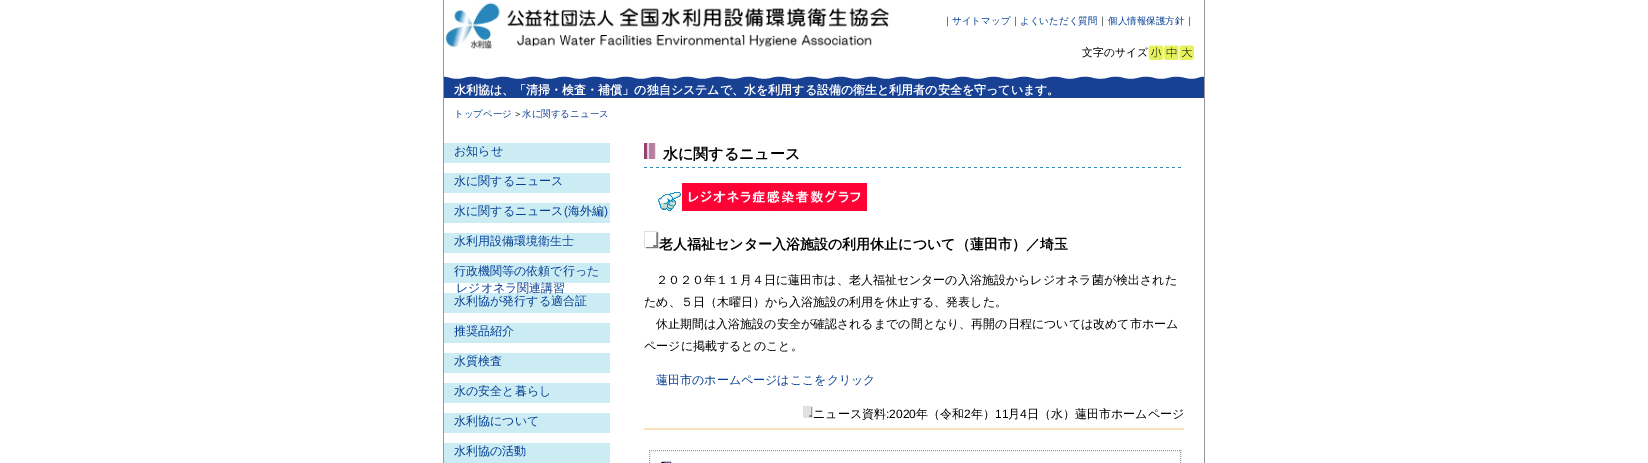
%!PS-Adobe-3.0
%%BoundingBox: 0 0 1648 463
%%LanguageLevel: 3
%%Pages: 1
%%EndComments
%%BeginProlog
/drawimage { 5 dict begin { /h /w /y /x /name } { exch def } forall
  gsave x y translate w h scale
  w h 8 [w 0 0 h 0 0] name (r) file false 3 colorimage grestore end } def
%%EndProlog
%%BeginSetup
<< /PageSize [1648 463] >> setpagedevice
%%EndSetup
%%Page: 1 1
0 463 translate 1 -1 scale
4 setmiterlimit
1 setgray
0 0 1648 463 rectfill
0.6 setgray
1204 0 1 463 rectfill
443 0 1 463 rectfill
(images/1.raw) 445 2 444 47 drawimage
(images/2.raw) 1148 45 16 15 drawimage
(images/3.raw) 1164 45 15 15 drawimage
(images/4.raw) 1179 45 15 15 drawimage
(images/5.raw) 444 76 760 22 drawimage
0.8 0.925 0.957 setrgbcolor
444 143 166 20 rectfill
444 173 166 20 rectfill
444 203 166 20 rectfill
444 233 166 20 rectfill
444 263 166 20 rectfill
444 293 166 20 rectfill
444 323 166 20 rectfill
444 353 166 20 rectfill
444 383 166 20 rectfill
444 413 166 20 rectfill
444 443 166 20 rectfill
(images/6.raw) 644 143 12 16 drawimage
(images/7.raw) 644 167 537 1 drawimage
(images/8.raw) 658 192 23 19 drawimage
(images/9.raw) 682 183 185 28 drawimage
(images/10.raw) 644 231 15 18 drawimage
(images/11.raw) 803 406 10 12 drawimage
0.973 0.882 0.733 setrgbcolor
644 428 540 2 rectfill
0.6 setgray
[1 1] 0 setdash
newpath 649 450.5 moveto 1181 450.5 lineto stroke
newpath 1180.5 450 moveto 1180.5 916 lineto stroke
newpath 649.5 450 moveto 649.5 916 lineto stroke
(images/12.raw) 661 461 11 2 drawimage
/WenQuanYiZenHei-Medium [9.5 0 0 -9.5 0 0] selectfont
0 setgray
943 24 moveto (｜) show
0.024 0.251 0.584 setrgbcolor
952 24 moveto (サイトマップ) show
0 setgray
1011 24 moveto (｜) show
0.024 0.251 0.584 setrgbcolor
1020 24 moveto (よくいただく質問) show
0 setgray
1098 24 moveto (｜) show
0.024 0.251 0.584 setrgbcolor
1108 24 moveto (個人情報保護方針) show
0 setgray
1185 24 moveto (｜) show
/WenQuanYiZenHei-Medium [10.75 0 0 -10.75 0 0] selectfont
1082 56 moveto (文字のサイズ) show
/WenQuanYiZenHei-Bold [12 0 0 -12 0 0] selectfont
1 setgray
454 94 moveto (水利協は、「清掃・検査・補償」の独自システムで、水を利用する設備の衛生と利用者の安全を守っています。) show
/WenQuanYiZenHei-Medium [9.5 0 0 -9.5 0 0] selectfont
0.024 0.251 0.584 setrgbcolor
454 117 moveto (トップページ) show
0 setgray
513 117 moveto (＞) show
0.094 0.255 0.58 setrgbcolor
522 117 moveto (水に関するニュース) show
/WenQuanYiZenHei-Medium [12 0 0 -12 0 0] selectfont
0.024 0.251 0.584 setrgbcolor
454 155 moveto (お知らせ) show
454 185 moveto (水に関するニュース) show
454 215 moveto (水に関するニュース) show
/LiberationSans-Regular [12 0 0 -12 0 0] selectfont
564 215 moveto (\() show
/WenQuanYiZenHei-Medium [12 0 0 -12 0 0] selectfont
568 215 moveto (海外編) show
/LiberationSans-Regular [12 0 0 -12 0 0] selectfont
604 215 moveto (\)) show
/WenQuanYiZenHei-Medium [12 0 0 -12 0 0] selectfont
454 245 moveto (水利用設備環境衛生士) show
454 275 moveto (行政機関等の依頼で行った) show
456 292 moveto (レジオネラ関連講習) show
454 305 moveto (水利協が発行する適合証) show
454 335 moveto (推奨品紹介) show
454 365 moveto (水質検査) show
454 395 moveto (水の安全と暮らし) show
454 425 moveto (水利協について) show
454 455 moveto (水利協の活動) show
/WenQuanYiZenHei-Bold [15 0 0 -15 0 0] selectfont
0 setgray
663 159 moveto (水に関するニュース) show
/WenQuanYiZenHei-Bold [14 0 0 -14 0 0] selectfont
659 249 moveto (老人福祉センター入浴施設の利用休止について（蓮田市）／埼玉) show
/WenQuanYiZenHei-Medium [12 0 0 -12 0 0] selectfont
656 284 moveto (２０２０年１１月４日に蓮田市は、老人福祉センターの入浴施設からレジオネラ菌が検出された) show
644 306 moveto (ため、５日（木曜日）から入浴施設の利用を休止する、発表した。) show
656 328 moveto (休止期間は入浴施設の安全が確認されるまでの間となり、再開の日程については改めて市ホーム) show
644 350 moveto (ページに掲載するとのこと。) show
0.024 0.251 0.584 setrgbcolor
656 384 moveto (蓮田市のホームページはここをクリック) show
0 setgray
813 418 moveto (ニュース資料) show
/LiberationSans-Regular [12 0 0 -12 0 0] selectfont
886 418 moveto (:2020) show
/WenQuanYiZenHei-Medium [12 0 0 -12 0 0] selectfont
916 418 moveto (年（令和) show
/LiberationSans-Regular [12 0 0 -12 0 0] selectfont
964 418 moveto (2) show
/WenQuanYiZenHei-Medium [12 0 0 -12 0 0] selectfont
971 418 moveto (年）) show
/LiberationSans-Regular [12 0 0 -12 0 0] selectfont
995 418 moveto (11) show
/WenQuanYiZenHei-Medium [12 0 0 -12 0 0] selectfont
1008 418 moveto (月) show
/LiberationSans-Regular [12 0 0 -12 0 0] selectfont
1020 418 moveto (4) show
/WenQuanYiZenHei-Medium [12 0 0 -12 0 0] selectfont
1027 418 moveto (日（水）蓮田市ホームページ) show
showpage
%%EOF
